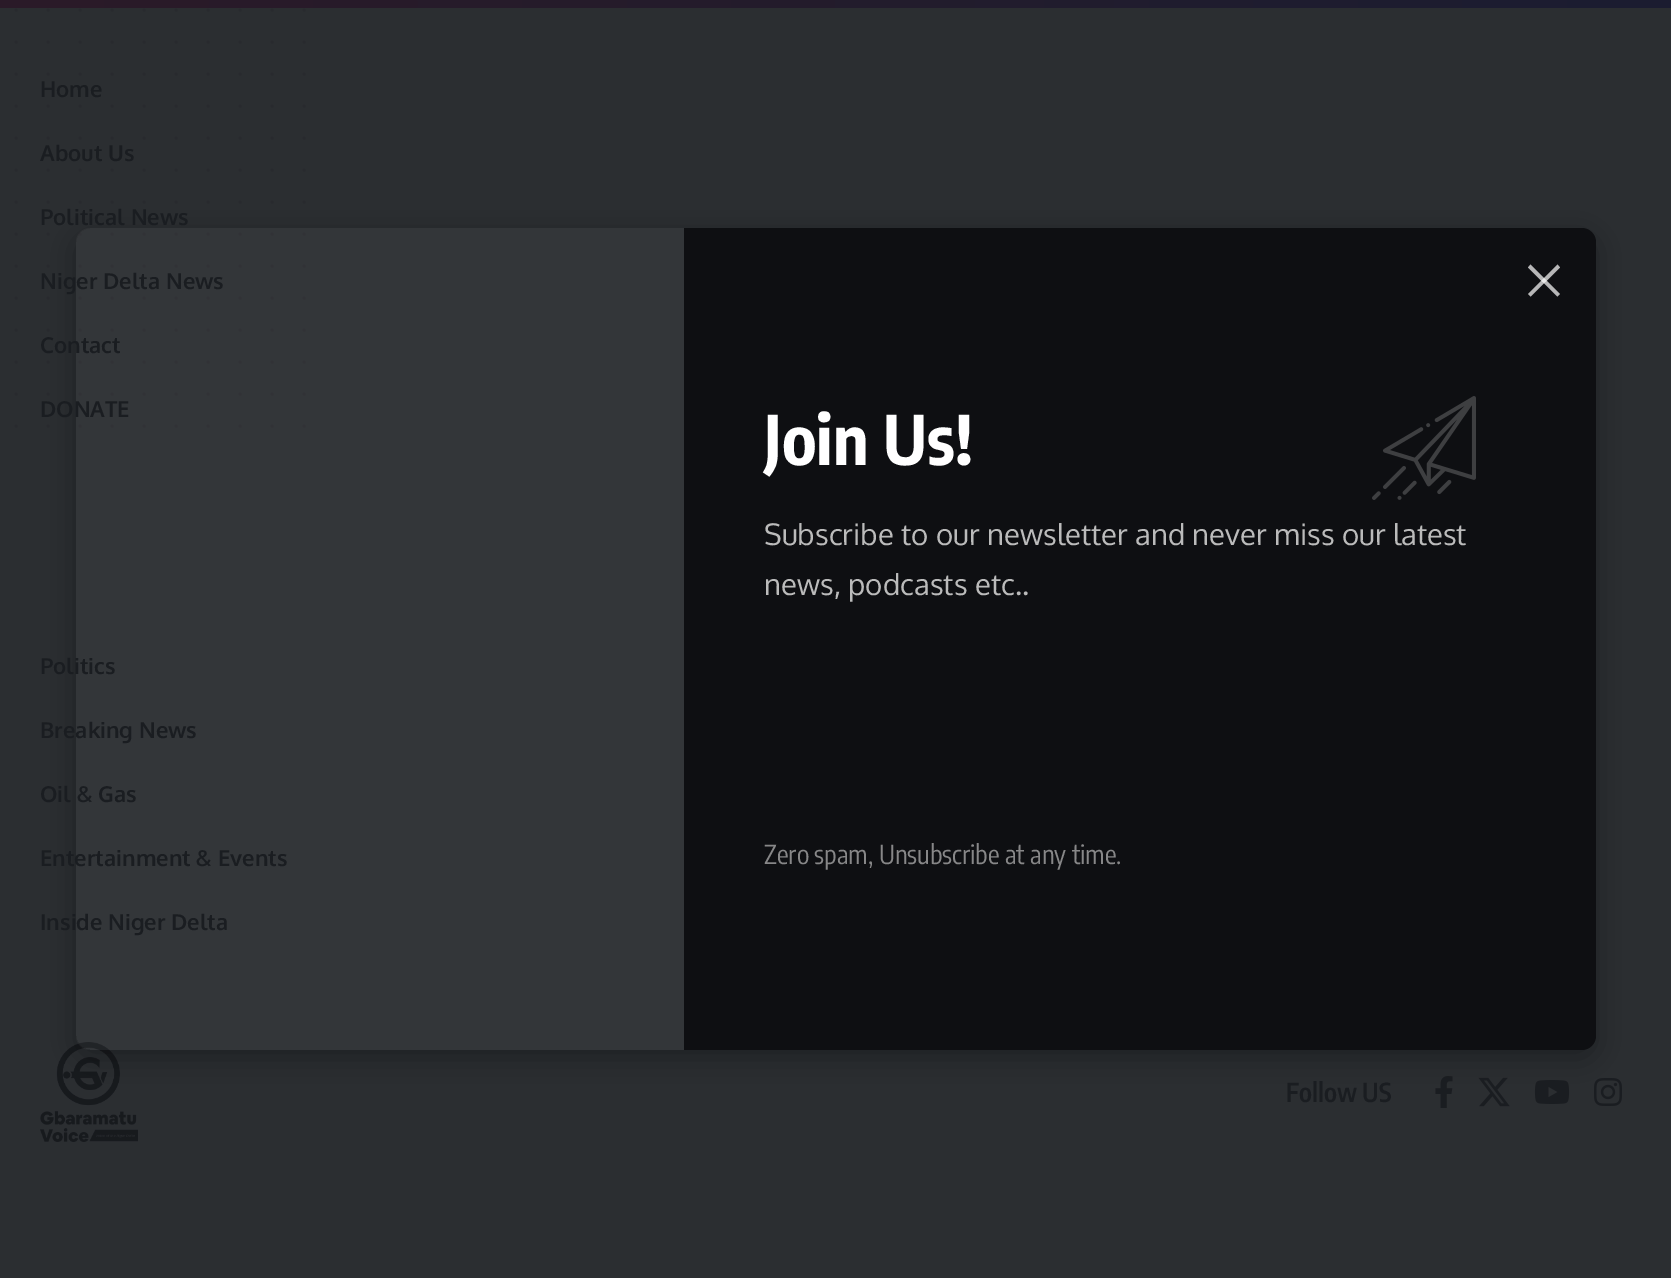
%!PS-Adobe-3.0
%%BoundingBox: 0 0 1671 1278
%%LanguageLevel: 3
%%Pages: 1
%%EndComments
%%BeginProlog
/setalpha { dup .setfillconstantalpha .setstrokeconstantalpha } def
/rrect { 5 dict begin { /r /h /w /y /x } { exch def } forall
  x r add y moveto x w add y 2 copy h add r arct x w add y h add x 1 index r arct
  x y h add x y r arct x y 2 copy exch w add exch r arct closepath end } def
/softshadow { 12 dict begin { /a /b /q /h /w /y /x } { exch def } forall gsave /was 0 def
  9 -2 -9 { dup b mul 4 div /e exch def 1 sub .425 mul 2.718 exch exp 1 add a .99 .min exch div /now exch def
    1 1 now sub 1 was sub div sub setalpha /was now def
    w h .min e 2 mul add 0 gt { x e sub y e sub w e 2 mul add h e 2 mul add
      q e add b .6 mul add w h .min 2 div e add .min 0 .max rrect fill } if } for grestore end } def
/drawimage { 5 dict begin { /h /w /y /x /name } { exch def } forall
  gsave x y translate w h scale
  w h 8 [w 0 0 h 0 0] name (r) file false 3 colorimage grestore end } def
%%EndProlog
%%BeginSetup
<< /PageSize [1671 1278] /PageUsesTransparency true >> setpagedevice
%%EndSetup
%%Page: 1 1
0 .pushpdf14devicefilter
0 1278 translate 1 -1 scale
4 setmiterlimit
0.169 0.18 0.192 setrgbcolor
0 0 1671 1278 rectfill
gsave newpath 0 0 moveto 1668 0 lineto 1670 0 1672 2 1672 4 curveto 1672 6 1670 8 1668 8 curveto 0 8 lineto closepath clip newpath
<< /ShadingType 2 /ColorSpace /DeviceRGB /Coords [0 4 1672 4] /Extend [true true] /Function << /FunctionType 2 /Domain [0 1] /C0 [0.169 0.102 0.157] /C1 [0.106 0.114 0.192] /N 1 >> >> shfill grestore
0.157 0.165 0.18 setrgbcolor
3 setlinewidth
1 setlinecap
[0 32] 0 setdash
newpath 16 -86 moveto 16 426.4 lineto stroke
newpath 48 -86 moveto 48 426.4 lineto stroke
newpath 80 -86 moveto 80 426.4 lineto stroke
newpath 112 -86 moveto 112 426.4 lineto stroke
newpath 144 -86 moveto 144 426.4 lineto stroke
newpath 176 -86 moveto 176 426.4 lineto stroke
newpath 208 -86 moveto 208 426.4 lineto stroke
newpath 240 -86 moveto 240 426.4 lineto stroke
newpath 272 -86 moveto 272 426.4 lineto stroke
newpath 304 -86 moveto 304 426.4 lineto stroke
(images/1.raw) 40 1042 98 100 drawimage
(images/2.raw) 1435 1076 18 32 drawimage
(images/3.raw) 1478 1077 32 30 drawimage
(images/4.raw) 1534 1080 36 24 drawimage
(images/5.raw) 1594 1078 28 28 drawimage
gsave
newpath 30 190 moveto 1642 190 lineto 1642 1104 lineto 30 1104 lineto closepath 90 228 moveto 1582 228 lineto 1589.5 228 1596 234.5 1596 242 curveto 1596 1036 lineto 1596 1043.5 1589.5 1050 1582 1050 curveto 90 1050 lineto 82.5 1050 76 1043.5 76 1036 curveto 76 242 lineto 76 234.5 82.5 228 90 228 curveto closepath eoclip newpath
0 setgray
76 236 1520 822 14 15 0.3 softshadow
grestore
0.055 0.059 0.071 setrgbcolor
newpath 684 228 moveto 1582 228 lineto 1589.5 228 1596 234.5 1596 242 curveto 1596 1036 lineto 1596 1043.5 1589.5 1050 1582 1050 curveto 684 1050 lineto closepath fill
0.718 0.718 0.722 setrgbcolor
newpath 1530.5 264.5 moveto 1560 294 lineto 1557.5 296.5 lineto 1528 267.5 lineto closepath fill
0.7 setalpha
1 setgray
newpath 1528 294 moveto 1557.5 264.5 lineto 1560 267.5 lineto 1530.5 296.5 lineto closepath fill
0.09 setalpha
0.533 setgray
newpath 90 228 moveto 684 228 lineto 684 1050 lineto 90 1050 lineto 82.5 1050 76 1043.5 76 1036 curveto 76 242 lineto 76 234.5 82.5 228 90 228 curveto closepath fill
1 setalpha
(images/6.raw) 1372 396 104 104 drawimage
/Oxygen-Bold [22 0 0 -22 0 0] selectfont
0.102 0.114 0.129 setrgbcolor
40 97 moveto (Home) show
40 161 moveto (About Us) show
40 225 moveto (Political News) show
40 289 moveto (Niger Delta News) show
40 353 moveto (Contact) show
40 417 moveto (DONATE) show
40 674 moveto (Politics) show
40 738 moveto (Breaking News) show
40 802 moveto (Oil & Gas) show
40 866 moveto (Entertainment & Events) show
40 930 moveto (Inside Niger Delta) show
/EncodeSansCondensed-SemiBold [26 0 0 -26 0 0] selectfont
1286 1102 moveto (Follow US) show
/EncodeSansCondensed-Bold [68 0 0 -68 0 0] selectfont
1 setgray
764 465 moveto (Join Us!) show
/Oxygen-Regular [29.4 0 0 -29.4 0 0] selectfont
0.733 setgray
764 545 moveto (Subscribe to our newsletter and never miss our latest) show
764 595 moveto (news, podcasts etc..) show
/EncodeSansCondensed-Regular [26 0 0 -26 0 0] selectfont
0.529 0.529 0.533 setrgbcolor
764 864 moveto (Zero spam, Unsubscribe at any time.) show
.poppdf14devicefilter showpage
%%EOF
